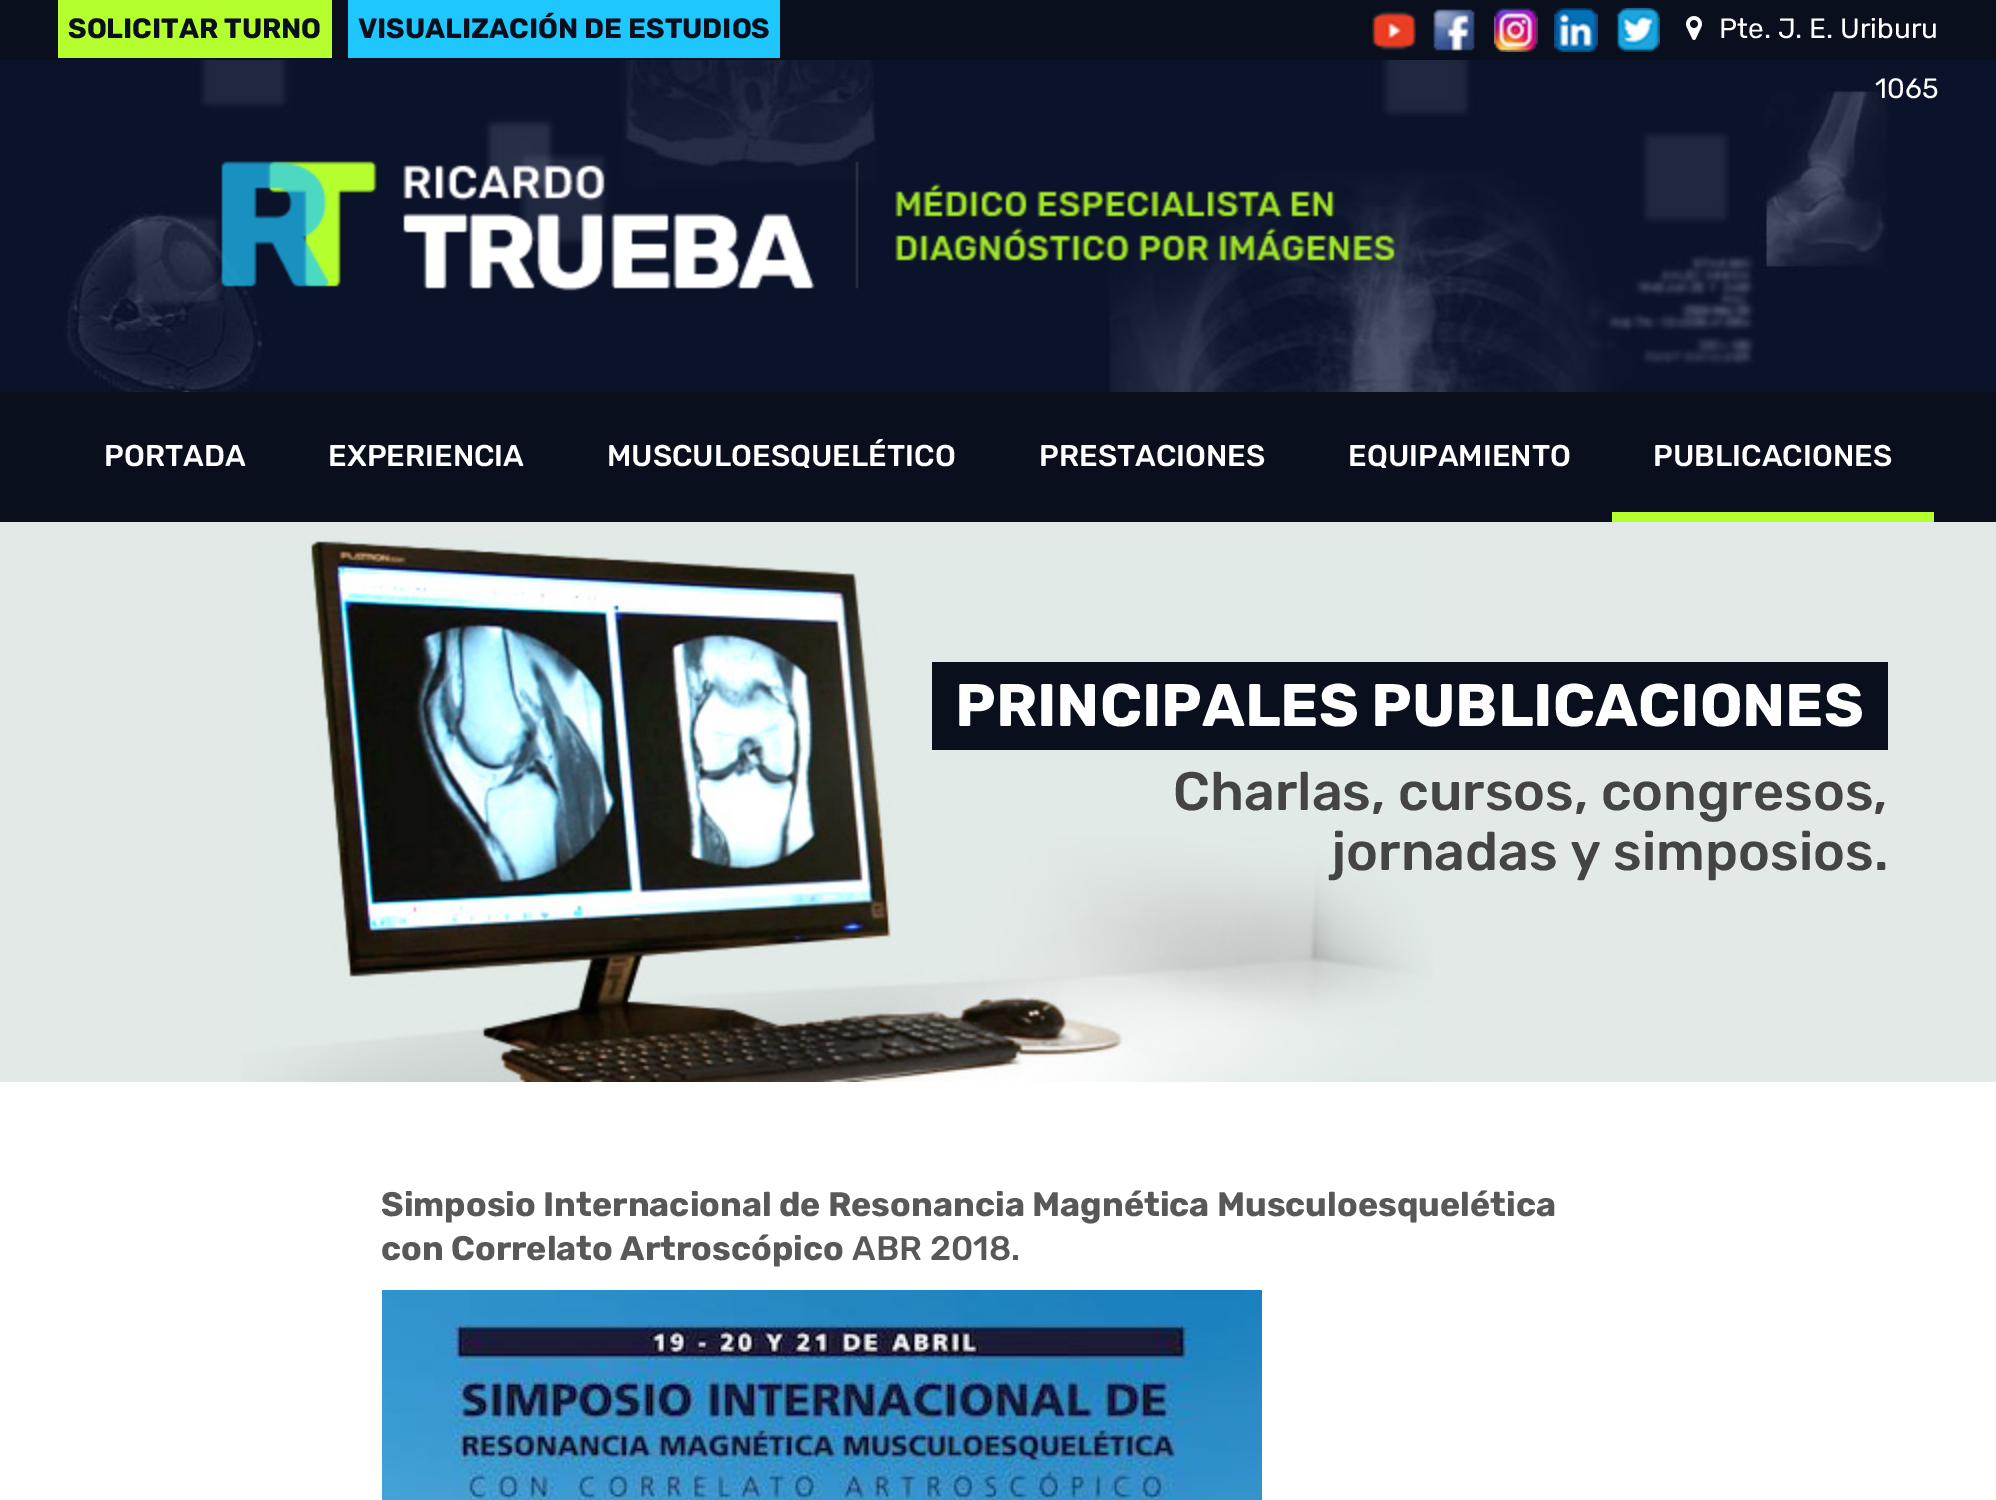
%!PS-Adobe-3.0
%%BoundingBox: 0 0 1996 1500
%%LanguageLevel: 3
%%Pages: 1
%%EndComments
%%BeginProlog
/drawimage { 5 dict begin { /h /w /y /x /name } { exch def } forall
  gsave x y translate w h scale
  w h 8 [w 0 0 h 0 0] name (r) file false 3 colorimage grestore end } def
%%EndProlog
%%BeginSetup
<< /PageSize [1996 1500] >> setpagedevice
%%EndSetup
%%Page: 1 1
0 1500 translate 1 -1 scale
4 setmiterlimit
1 setgray
0 0 1996 1500 rectfill
0.039 0.059 0.114 setrgbcolor
0 0 1996 522 rectfill
0.71 1 0.18 setrgbcolor
58 0 274 58 rectfill
0.122 0.78 1 setrgbcolor
348 0 432 58 rectfill
(images/1.raw) 1372 11 44 40 drawimage
(images/2.raw) 1433 9 42 42 drawimage
(images/3.raw) 1494 8 44 44 drawimage
(images/4.raw) 1554 8 44 44 drawimage
(images/5.raw) 1616 8 44 44 drawimage
(images/6.raw) 1686 16 16 24 drawimage
(images/7.raw) 0 60 1996 332 drawimage
(images/8.raw) 221 161 1174 130 drawimage
0.71 1 0.18 setrgbcolor
1612 512 322 10 rectfill
0.89 0.914 0.902 setrgbcolor
0 522 1996 560 rectfill
(images/9.raw) 241 538 1192 544 drawimage
0.039 0.059 0.114 setrgbcolor
932 662 956 88 rectfill
(images/10.raw) 382 1290 880 210 drawimage
/Rubik-Bold [28 0 0 -28 0 0] selectfont
68 38 moveto (SOLICITAR TURNO) show
358 38 moveto (VISUALIZACIÓN DE ESTUDIOS) show
/Rubik-Regular [28 0 0 -28 0 0] selectfont
1 setgray
1719 38 moveto (Pte. J. E. Uriburu) show
1875 98 moveto (1065) show
/Rubik-Medium [30 0 0 -30 0 0] selectfont
104 466 moveto (PORTADA) show
328 466 moveto (EXPERIENCIA) show
607 466 moveto (MUSCULOESQUELÉTICO) show
1039 466 moveto (PRESTACIONES) show
1348 466 moveto (EQUIPAMIENTO) show
1653 466 moveto (PUBLICACIONES) show
/Rubik-Bold [60 0 0 -60 0 0] selectfont
955 726 moveto (PRINCIPALES PUBLICACIONES) show
/Rubik-Medium [54 0 0 -54 0 0] selectfont
0.267 setgray
1173 810 moveto (Charlas, cursos, congresos,) show
1331 870 moveto (jornadas y simposios.) show
/Rubik-Bold [34 0 0 -34 0 0] selectfont
0.345 setgray
381 1216 moveto (Simposio Internacional de Resonancia Magnética Musculoesquelética) show
381 1260 moveto (con Correlato Artroscópico) show
/Rubik-Medium [34 0 0 -34 0 0] selectfont
852 1260 moveto (ABR 2018.) show
showpage
%%EOF
